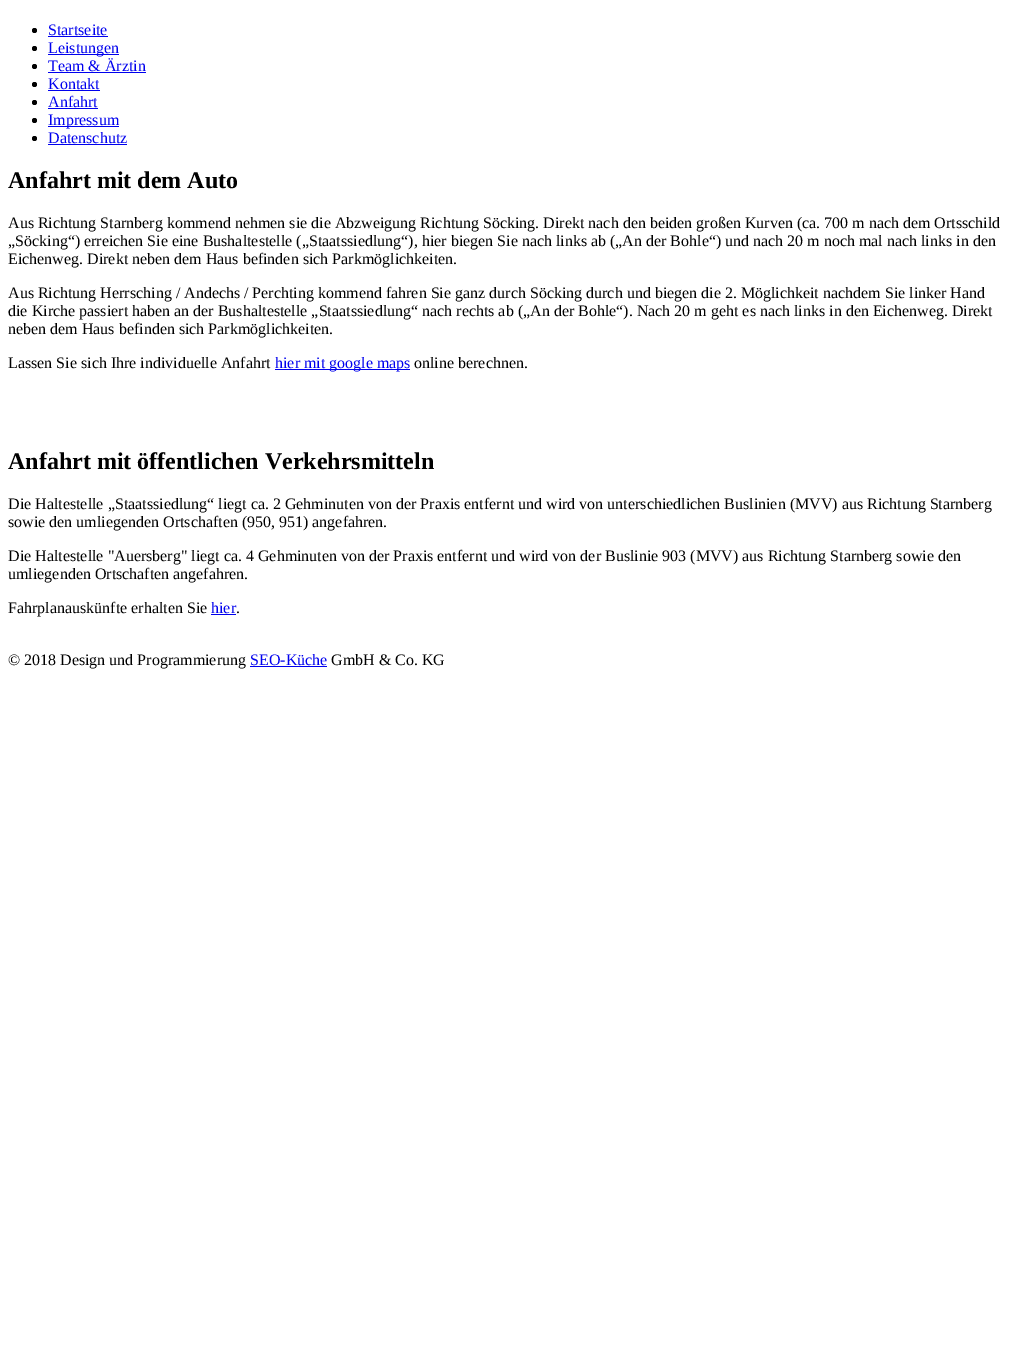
%!PS-Adobe-3.0
%%BoundingBox: 0 0 1014 1354
%%LanguageLevel: 3
%%Pages: 1
%%EndComments
%%BeginProlog
%%EndProlog
%%BeginSetup
<< /PageSize [1014 1354] >> setpagedevice
%%EndSetup
%%Page: 1 1
0 1354 translate 1 -1 scale
4 setmiterlimit
1 setgray
0 0 1014 1354 rectfill
0 setgray
newpath 34.5 30.5 2.5 0 360 arc closepath fill
0 0 0.933 setrgbcolor
48 36 60 1 rectfill
0 setgray
newpath 34.5 48.5 2.5 0 360 arc closepath fill
0 0 0.933 setrgbcolor
48 54 71 1 rectfill
0 setgray
newpath 34.5 66.5 2.5 0 360 arc closepath fill
0 0 0.933 setrgbcolor
48 72 98 1 rectfill
0 setgray
newpath 34.5 84.5 2.5 0 360 arc closepath fill
0 0 0.933 setrgbcolor
48 90 52 1 rectfill
0 setgray
newpath 34.5 102.5 2.5 0 360 arc closepath fill
0 0 0.933 setrgbcolor
48 108 50 1 rectfill
0 setgray
newpath 34.5 120.5 2.5 0 360 arc closepath fill
0 0 0.933 setrgbcolor
48 126 71 1 rectfill
0 setgray
newpath 34.5 138.5 2.5 0 360 arc closepath fill
0 0 0.933 setrgbcolor
48 144 79 1 rectfill
275 369 135 1 rectfill
211 614 25 1 rectfill
250 666 77 1 rectfill
/LiberationSerif-Regular [16 0 0 -16 0 0] selectfont
48 35 moveto (Startseite) show
48 53 moveto (Leistungen) show
48 71 moveto (Team & Ärztin) show
48 89 moveto (Kontakt) show
48 107 moveto (Anfahrt) show
48 125 moveto (Impressum) show
48 143 moveto (Datenschutz) show
/LiberationSerif-Bold [24 0 0 -24 0 0] selectfont
0 setgray
8 188 moveto (Anfahrt mit dem Auto) show
/LiberationSerif-Regular [16 0 0 -16 0 0] selectfont
8 228 moveto (Aus Richtung Starnberg kommend nehmen sie die Abzweigung Richtung Söcking. Direkt nach den beiden großen Kurven \(ca. 700 m nach dem Ortsschild) show
8 246 moveto („Söcking“\) erreichen Sie eine Bushaltestelle \(„Staatssiedlung“\), hier biegen Sie nach links ab \(„An der Bohle“\) und nach 20 m noch mal nach links in den) show
8 264 moveto (Eichenweg. Direkt neben dem Haus befinden sich Parkmöglichkeiten.) show
8 298 moveto (Aus Richtung Herrsching / Andechs / Perchting kommend fahren Sie ganz durch Söcking durch und biegen die 2. Möglichkeit nachdem Sie linker Hand) show
8 316 moveto (die Kirche passiert haben an der Bushaltestelle „Staatssiedlung“ nach rechts ab \(„An der Bohle“\). Nach 20 m geht es nach links in den Eichenweg. Direkt) show
8 334 moveto (neben dem Haus befinden sich Parkmöglichkeiten.) show
8 368 moveto (Lassen Sie sich Ihre individuelle Anfahrt) show
0 0 0.933 setrgbcolor
275 368 moveto (hier mit google maps) show
0 setgray
414 368 moveto (online berechnen.) show
/LiberationSerif-Bold [24 0 0 -24 0 0] selectfont
8 469 moveto (Anfahrt mit öffentlichen Verkehrsmitteln) show
/LiberationSerif-Regular [16 0 0 -16 0 0] selectfont
8 509 moveto (Die Haltestelle „Staatssiedlung“ liegt ca. 2 Gehminuten von der Praxis entfernt und wird von unterschiedlichen Buslinien \(MVV\) aus Richtung Starnberg) show
8 527 moveto (sowie den umliegenden Ortschaften \(950, 951\) angefahren.) show
8 561 moveto (Die Haltestelle "Auersberg" liegt ca. 4 Gehminuten von der Praxis entfernt und wird von der Buslinie 903 \(MVV\) aus Richtung Starnberg sowie den) show
8 579 moveto (umliegenden Ortschaften angefahren.) show
8 613 moveto (Fahrplanauskünfte erhalten Sie) show
0 0 0.933 setrgbcolor
211 613 moveto (hier) show
0 setgray
236 613 moveto (.) show
8 665 moveto (© 2018 Design und Programmierung) show
0 0 0.933 setrgbcolor
250 665 moveto (SEO-Küche) show
0 setgray
331 665 moveto (GmbH & Co. KG) show
showpage
%%EOF
